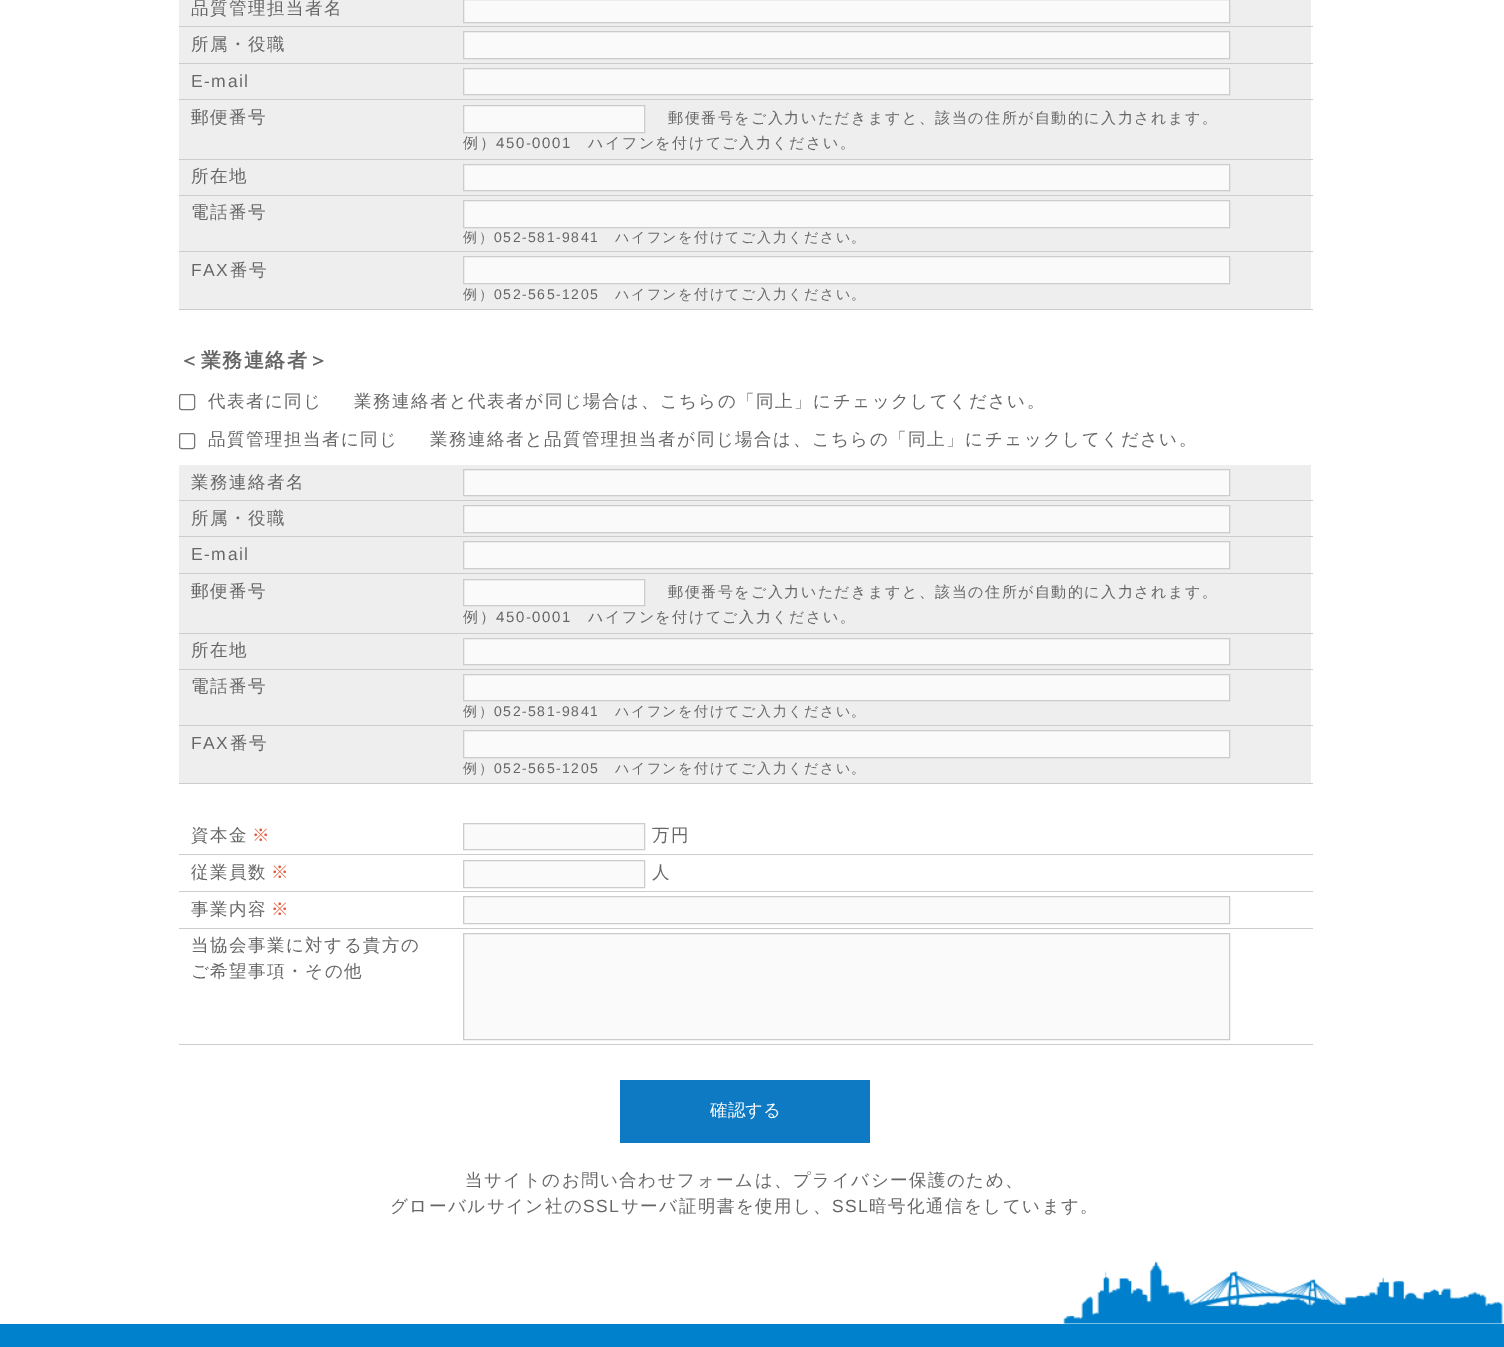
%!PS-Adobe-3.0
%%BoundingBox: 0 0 1504 1347
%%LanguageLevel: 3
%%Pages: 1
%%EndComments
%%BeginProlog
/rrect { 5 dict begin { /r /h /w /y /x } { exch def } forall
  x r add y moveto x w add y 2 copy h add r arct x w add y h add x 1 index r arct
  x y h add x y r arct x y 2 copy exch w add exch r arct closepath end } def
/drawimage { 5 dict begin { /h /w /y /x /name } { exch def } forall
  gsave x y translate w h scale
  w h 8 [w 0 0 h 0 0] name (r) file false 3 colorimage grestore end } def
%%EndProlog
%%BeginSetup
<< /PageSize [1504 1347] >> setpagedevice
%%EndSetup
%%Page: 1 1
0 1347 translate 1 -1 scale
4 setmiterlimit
1 setgray
0 0 1504 1347 rectfill
0.933 setgray
179 0 1132 309 rectfill
0.8 setgray
179 26 1134 1 rectfill
0.98 setgray
newpath 463.5 -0.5 moveto 1229.5 -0.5 lineto 1229.5 22.5 lineto 463.5 22.5 lineto closepath gsave fill grestore
0.8 setgray
stroke
179 63 1134 1 rectfill
0.98 setgray
newpath 463.5 31.5 moveto 1229.5 31.5 lineto 1229.5 58.5 lineto 463.5 58.5 lineto closepath gsave fill grestore
0.8 setgray
stroke
179 99 1134 1 rectfill
0.98 setgray
newpath 463.5 68.5 moveto 1229.5 68.5 lineto 1229.5 94.5 lineto 463.5 94.5 lineto closepath gsave fill grestore
0.8 setgray
stroke
179 159 1134 1 rectfill
0.98 setgray
newpath 463.5 105.5 moveto 644.5 105.5 lineto 644.5 132.5 lineto 463.5 132.5 lineto closepath gsave fill grestore
0.8 setgray
stroke
179 195 1134 1 rectfill
0.98 setgray
newpath 463.5 164.5 moveto 1229.5 164.5 lineto 1229.5 190.5 lineto 463.5 190.5 lineto closepath gsave fill grestore
0.8 setgray
stroke
179 251 1134 1 rectfill
0.98 setgray
newpath 463.5 200.5 moveto 1229.5 200.5 lineto 1229.5 227.5 lineto 463.5 227.5 lineto closepath gsave fill grestore
0.8 setgray
stroke
179 309 1134 1 rectfill
0.98 setgray
newpath 463.5 256.5 moveto 1229.5 256.5 lineto 1229.5 283.5 lineto 463.5 283.5 lineto closepath gsave fill grestore
0.8 setgray
stroke
0.463 setgray
179.5 394.5 15 15 2 rrect stroke
179.5 433.5 15 15 2 rrect stroke
0.933 setgray
179 465 1132 318 rectfill
0.8 setgray
179 500 1134 1 rectfill
0.98 setgray
newpath 463.5 469.5 moveto 1229.5 469.5 lineto 1229.5 495.5 lineto 463.5 495.5 lineto closepath gsave fill grestore
0.8 setgray
stroke
179 536 1134 1 rectfill
0.98 setgray
newpath 463.5 505.5 moveto 1229.5 505.5 lineto 1229.5 532.5 lineto 463.5 532.5 lineto closepath gsave fill grestore
0.8 setgray
stroke
179 573 1134 1 rectfill
0.98 setgray
newpath 463.5 541.5 moveto 1229.5 541.5 lineto 1229.5 568.5 lineto 463.5 568.5 lineto closepath gsave fill grestore
0.8 setgray
stroke
179 633 1134 1 rectfill
0.98 setgray
newpath 463.5 579.5 moveto 644.5 579.5 lineto 644.5 605.5 lineto 463.5 605.5 lineto closepath gsave fill grestore
0.8 setgray
stroke
179 669 1134 1 rectfill
0.98 setgray
newpath 463.5 638.5 moveto 1229.5 638.5 lineto 1229.5 664.5 lineto 463.5 664.5 lineto closepath gsave fill grestore
0.8 setgray
stroke
179 725 1134 1 rectfill
0.98 setgray
newpath 463.5 674.5 moveto 1229.5 674.5 lineto 1229.5 700.5 lineto 463.5 700.5 lineto closepath gsave fill grestore
0.8 setgray
stroke
179 783 1134 1 rectfill
0.98 setgray
newpath 463.5 730.5 moveto 1229.5 730.5 lineto 1229.5 757.5 lineto 463.5 757.5 lineto closepath gsave fill grestore
0.8 setgray
stroke
179 854 1134 1 rectfill
0.98 setgray
newpath 463.5 823.5 moveto 644.5 823.5 lineto 644.5 849.5 lineto 463.5 849.5 lineto closepath gsave fill grestore
0.8 setgray
stroke
179 891 1134 1 rectfill
0.98 setgray
newpath 463.5 860.5 moveto 644.5 860.5 lineto 644.5 887.5 lineto 463.5 887.5 lineto closepath gsave fill grestore
0.8 setgray
stroke
179 928 1134 1 rectfill
0.98 setgray
newpath 463.5 896.5 moveto 1229.5 896.5 lineto 1229.5 923.5 lineto 463.5 923.5 lineto closepath gsave fill grestore
0.8 setgray
stroke
179 1044 1134 1 rectfill
0.98 setgray
newpath 463.5 933.5 moveto 1229.5 933.5 lineto 1229.5 1039.5 lineto 463.5 1039.5 lineto closepath gsave fill grestore
0.8 setgray
stroke
0.055 0.478 0.769 setrgbcolor
620 1080 250 63 rectfill
(images/1.raw) 1063 1261 440 63 drawimage
0 0.506 0.8 setrgbcolor
0 1324 1504 23 rectfill
/WenQuanYiZenHei-Medium [17.5 0 0 -17.5 0 0] selectfont
0.4 setgray
191 14 moveto 1.5 0 (品質管理担当者名) ashow
191 50 moveto 1.5 0 (所属・役職) ashow
/LiberationSans-Regular [17.5 0 0 -17.5 0 0] selectfont
191 87 moveto 1.5 0 (E-mail) ashow
/WenQuanYiZenHei-Medium [17.5 0 0 -17.5 0 0] selectfont
191 123 moveto 1.5 0 (郵便番号) ashow
/WenQuanYiZenHei-Medium [15 0 0 -15 0 0] selectfont
668 123 moveto 1.5 0 (郵便番号をご入力いただきますと、該当の住所が自動的に入力されます。) ashow
463 148 moveto 1.5 0 (例）) ashow
/LiberationSans-Regular [15 0 0 -15 0 0] selectfont
496 148 moveto 1.5 0 (450-0001) ashow
/WenQuanYiZenHei-Medium [15 0 0 -15 0 0] selectfont
588 148 moveto 1.5 0 (ハイフンを付けてご入力ください。) ashow
/WenQuanYiZenHei-Medium [17.5 0 0 -17.5 0 0] selectfont
191 182 moveto 1.5 0 (所在地) ashow
191 218 moveto 1.5 0 (電話番号) ashow
/WenQuanYiZenHei-Medium [14 0 0 -14 0 0] selectfont
463 242 moveto 1.5 0 (例）) ashow
/LiberationSans-Regular [14 0 0 -14 0 0] selectfont
494 242 moveto 1.5 0 (052-581-9841) ashow
/WenQuanYiZenHei-Medium [14 0 0 -14 0 0] selectfont
615 242 moveto 1.5 0 (ハイフンを付けてご入力ください。) ashow
/LiberationSans-Regular [17.5 0 0 -17.5 0 0] selectfont
191 276 moveto 1.5 0 (FAX) ashow
/WenQuanYiZenHei-Medium [17.5 0 0 -17.5 0 0] selectfont
230 276 moveto 1.5 0 (番号) ashow
/WenQuanYiZenHei-Medium [14 0 0 -14 0 0] selectfont
463 299 moveto 1.5 0 (例）) ashow
/LiberationSans-Regular [14 0 0 -14 0 0] selectfont
494 299 moveto 1.5 0 (052-565-1205) ashow
/WenQuanYiZenHei-Medium [14 0 0 -14 0 0] selectfont
615 299 moveto 1.5 0 (ハイフンを付けてご入力ください。) ashow
/WenQuanYiZenHei-Bold [20 0 0 -20 0 0] selectfont
179 367 moveto 1.5 0 (＜業務連絡者＞) ashow
/WenQuanYiZenHei-Medium [17.5 0 0 -17.5 0 0] selectfont
208 407 moveto 1.5 0 (代表者に同じ) ashow
354 407 moveto 1.5 0 (業務連絡者と代表者が同じ場合は、こちらの「同上」にチェックしてください。) ashow
208 445 moveto 1.5 0 (品質管理担当者に同じ) ashow
430 445 moveto 1.5 0 (業務連絡者と品質管理担当者が同じ場合は、こちらの「同上」にチェックしてください。) ashow
191 488 moveto 1.5 0 (業務連絡者名) ashow
191 524 moveto 1.5 0 (所属・役職) ashow
/LiberationSans-Regular [17.5 0 0 -17.5 0 0] selectfont
191 560 moveto 1.5 0 (E-mail) ashow
/WenQuanYiZenHei-Medium [17.5 0 0 -17.5 0 0] selectfont
191 597 moveto 1.5 0 (郵便番号) ashow
/WenQuanYiZenHei-Medium [15 0 0 -15 0 0] selectfont
668 597 moveto 1.5 0 (郵便番号をご入力いただきますと、該当の住所が自動的に入力されます。) ashow
463 622 moveto 1.5 0 (例）) ashow
/LiberationSans-Regular [15 0 0 -15 0 0] selectfont
496 622 moveto 1.5 0 (450-0001) ashow
/WenQuanYiZenHei-Medium [15 0 0 -15 0 0] selectfont
588 622 moveto 1.5 0 (ハイフンを付けてご入力ください。) ashow
/WenQuanYiZenHei-Medium [17.5 0 0 -17.5 0 0] selectfont
191 656 moveto 1.5 0 (所在地) ashow
191 692 moveto 1.5 0 (電話番号) ashow
/WenQuanYiZenHei-Medium [14 0 0 -14 0 0] selectfont
463 716 moveto 1.5 0 (例）) ashow
/LiberationSans-Regular [14 0 0 -14 0 0] selectfont
494 716 moveto 1.5 0 (052-581-9841) ashow
/WenQuanYiZenHei-Medium [14 0 0 -14 0 0] selectfont
615 716 moveto 1.5 0 (ハイフンを付けてご入力ください。) ashow
/LiberationSans-Regular [17.5 0 0 -17.5 0 0] selectfont
191 749 moveto 1.5 0 (FAX) ashow
/WenQuanYiZenHei-Medium [17.5 0 0 -17.5 0 0] selectfont
230 749 moveto 1.5 0 (番号) ashow
/WenQuanYiZenHei-Medium [14 0 0 -14 0 0] selectfont
463 773 moveto 1.5 0 (例）) ashow
/LiberationSans-Regular [14 0 0 -14 0 0] selectfont
494 773 moveto 1.5 0 (052-565-1205) ashow
/WenQuanYiZenHei-Medium [14 0 0 -14 0 0] selectfont
615 773 moveto 1.5 0 (ハイフンを付けてご入力ください。) ashow
/WenQuanYiZenHei-Medium [17.5 0 0 -17.5 0 0] selectfont
191 841 moveto 1.5 0 (資本金) ashow
0.898 0.353 0.231 setrgbcolor
252 841 moveto 1.5 0 (※) ashow
0.4 setgray
652 841 moveto 1.5 0 (万円) ashow
191 878 moveto 1.5 0 (従業員数) ashow
0.898 0.353 0.231 setrgbcolor
271 878 moveto 1.5 0 (※) ashow
0.4 setgray
652 878 moveto 1.5 0 (人) ashow
191 915 moveto 1.5 0 (事業内容) ashow
0.898 0.353 0.231 setrgbcolor
271 915 moveto 1.5 0 (※) ashow
0.4 setgray
191 951 moveto 1.5 0 (当協会事業に対する貴方の) ashow
191 977 moveto 1.5 0 (ご希望事項・その他) ashow
1 setgray
710 1116 moveto (確認する) show
0.4 setgray
465 1186 moveto 1.5 0 (当サイトのお問い合わせフォームは、プライバシー保護のため、) ashow
390 1212 moveto 1.5 0 (グローバルサイン社の) ashow
/LiberationSans-Regular [17.5 0 0 -17.5 0 0] selectfont
583 1212 moveto 1.5 0 (SSL) ashow
/WenQuanYiZenHei-Medium [17.5 0 0 -17.5 0 0] selectfont
621 1212 moveto 1.5 0 (サーバ証明書を使用し、) ashow
/LiberationSans-Regular [17.5 0 0 -17.5 0 0] selectfont
832 1212 moveto 1.5 0 (SSL) ashow
/WenQuanYiZenHei-Medium [17.5 0 0 -17.5 0 0] selectfont
869 1212 moveto 1.5 0 (暗号化通信をしています。) ashow
showpage
%%EOF
